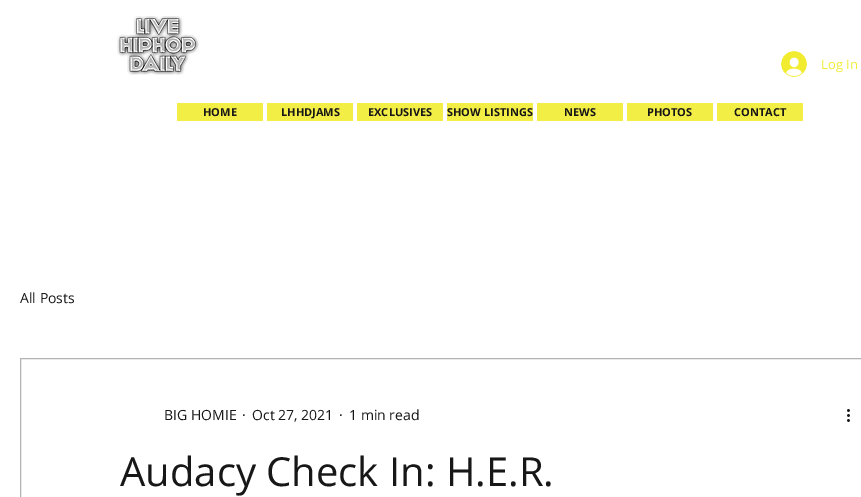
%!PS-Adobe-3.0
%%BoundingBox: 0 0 861 497
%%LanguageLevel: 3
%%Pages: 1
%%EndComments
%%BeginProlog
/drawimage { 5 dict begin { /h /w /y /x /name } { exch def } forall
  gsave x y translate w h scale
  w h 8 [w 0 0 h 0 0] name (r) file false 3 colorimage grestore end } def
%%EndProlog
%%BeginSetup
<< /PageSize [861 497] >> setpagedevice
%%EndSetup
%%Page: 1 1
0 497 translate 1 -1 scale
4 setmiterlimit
1 setgray
0 0 861 497 rectfill
(images/1.raw) 117 16 82 59 drawimage
(images/2.raw) 781 51 26 26 drawimage
0.953 0.933 0.271 setrgbcolor
177 103 86 18 rectfill
267 103 86 18 rectfill
357 103 86 18 rectfill
447 103 86 18 rectfill
537 103 86 18 rectfill
627 103 86 18 rectfill
717 103 86 18 rectfill
0.702 setgray
20.5 358.5 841 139 rectstroke
(images/3.raw) 847 409 3 13 drawimage
/OpenSans-Regular [13 0 0 -13 0 0] selectfont
0.949 0.925 0.188 setrgbcolor
821 69 moveto (Log In) show
/OpenSans-Bold [11 0 0 -11 0 0] selectfont
0.094 0.09 0.09 setrgbcolor
203 116 moveto (HOME) show
281 116 moveto (LHHDJAMS) show
368 116 moveto (EXCLUSIVES) show
447 116 moveto (SHOW LISTINGS) show
564 116 moveto (NEWS) show
647 116 moveto (PHOTOS) show
734 116 moveto (CONTACT) show
/OpenSans-Regular [14 0 0 -14 0 0] selectfont
20 303 moveto (All Posts) show
164 420 moveto (BIG HOMIE) show
242 420 moveto (·) show
252 420 moveto (Oct 27, 2021) show
339 420 moveto (·) show
349 420 moveto (1 min read) show
/OpenSans-Regular [40 0 0 -40 0 0] selectfont
120 486 moveto (Audacy Check In: H.E.R.) show
showpage
%%EOF
